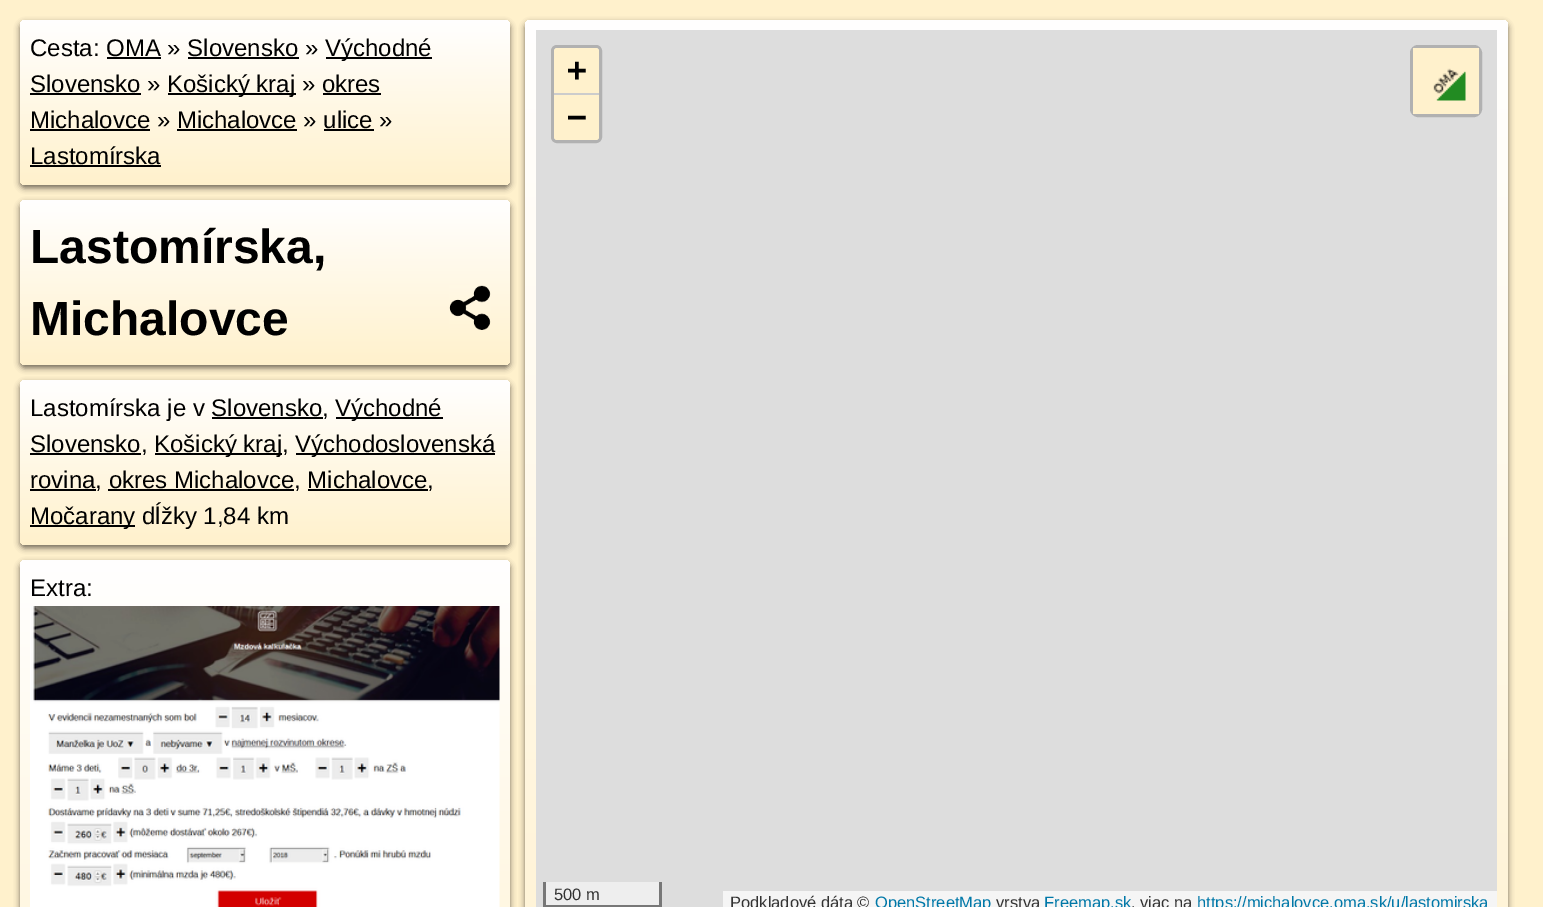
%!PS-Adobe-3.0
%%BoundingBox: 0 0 1543 907
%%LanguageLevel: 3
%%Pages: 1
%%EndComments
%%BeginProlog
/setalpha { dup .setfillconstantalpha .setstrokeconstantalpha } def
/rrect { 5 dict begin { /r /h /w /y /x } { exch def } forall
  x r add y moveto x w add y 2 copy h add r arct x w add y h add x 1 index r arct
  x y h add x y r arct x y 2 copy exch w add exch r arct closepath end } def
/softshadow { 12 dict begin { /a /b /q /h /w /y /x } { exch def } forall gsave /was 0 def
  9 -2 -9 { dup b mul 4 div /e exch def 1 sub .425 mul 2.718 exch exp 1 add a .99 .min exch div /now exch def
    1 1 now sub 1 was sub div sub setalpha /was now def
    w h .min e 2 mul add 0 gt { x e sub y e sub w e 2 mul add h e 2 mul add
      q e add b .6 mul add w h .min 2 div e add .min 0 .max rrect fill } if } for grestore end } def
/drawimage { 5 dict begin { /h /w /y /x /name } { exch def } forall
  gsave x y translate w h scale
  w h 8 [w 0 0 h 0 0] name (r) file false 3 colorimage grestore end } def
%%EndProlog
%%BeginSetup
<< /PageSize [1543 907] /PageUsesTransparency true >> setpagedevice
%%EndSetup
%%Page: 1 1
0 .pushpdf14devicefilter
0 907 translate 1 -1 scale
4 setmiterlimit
1 0.945 0.8 setrgbcolor
0 0 1543 907 rectfill
0 setgray
20 23 490 165 5 3 0.55 softshadow
gsave 20 20 490 165 5 rrect clip newpath
<< /ShadingType 2 /ColorSpace /DeviceRGB /Coords [265 19 265 185] /Extend [true true] /Function << /FunctionType 2 /Domain [0 1] /C0 [1 1 1] /C1 [1 0.945 0.8] /N 1 >> >> shfill grestore
326 57 106 2 rectfill
107 57 54 2 rectfill
188 57 111 2 rectfill
30 93 111 2 rectfill
168 93 128 2 rectfill
323 93 58 2 rectfill
30 129 120 2 rectfill
177 129 120 2 rectfill
324 129 50 2 rectfill
30 165 131 2 rectfill
20 203 490 165 5 3 0.55 softshadow
gsave 20 200 490 165 5 rrect clip newpath
<< /ShadingType 2 /ColorSpace /DeviceRGB /Coords [265 199 265 365] /Extend [true true] /Function << /FunctionType 2 /Domain [0 1] /C0 [1 1 1] /C1 [1 0.945 0.8] /N 1 >> >> shfill grestore
(images/1.raw) 449 285 42 45 drawimage
20 383 490 165 5 3 0.55 softshadow
gsave 20 380 490 165 5 rrect clip newpath
<< /ShadingType 2 /ColorSpace /DeviceRGB /Coords [265 379 265 545] /Extend [true true] /Function << /FunctionType 2 /Domain [0 1] /C0 [1 1 1] /C1 [1 0.945 0.8] /N 1 >> >> shfill grestore
336 417 107 2 rectfill
212 417 111 2 rectfill
30 453 111 2 rectfill
155 453 127 2 rectfill
296 453 199 2 rectfill
30 489 66 2 rectfill
108 489 186 2 rectfill
308 489 120 2 rectfill
30 525 105 2 rectfill
20 563 490 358 5 3 0.55 softshadow
gsave 20 560 490 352 5 rrect clip newpath
<< /ShadingType 2 /ColorSpace /DeviceRGB /Coords [265 560 265 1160] /Extend [true true] /Function << /FunctionType 2 /Domain [0 1] /C0 [1 1 1] /C1 [1 0.945 0.8] /N 1 >> >> shfill grestore
(images/2.raw) 30 606 470 301 drawimage
525 23 983 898 5 3 0.55 softshadow
gsave 525 20 983 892 5 rrect clip newpath
<< /ShadingType 2 /ColorSpace /DeviceRGB /Coords [1016 19 1016 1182] /Extend [true true] /Function << /FunctionType 2 /Domain [0 1] /C0 [1 1 1] /C1 [1 0.945 0.8] /N 1 >> >> shfill grestore
0.867 setgray
536 30 961 877 rectfill
0.694 setgray
3 setlinewidth
552.5 46.5 48 95 4.5 rrect stroke
1 0.945 0.8 setrgbcolor
newpath 557 48 moveto 596 48 lineto 597.5 48 599 49.5 599 51 curveto 599 95 lineto 554 95 lineto 554 51 lineto 554 49.5 555.5 48 557 48 curveto closepath fill
0.8 setgray
554 93 45 2 rectfill
1 0.945 0.8 setrgbcolor
newpath 554 95 moveto 599 95 lineto 599 137 lineto 599 138.5 597.5 140 596 140 curveto 557 140 lineto 555.5 140 554 138.5 554 137 curveto closepath fill
0.2 setalpha
0 setgray
1411.5 46.5 69 69 6.5 rrect stroke
1 setalpha
1 0.945 0.8 setrgbcolor
1413 48 66 66 rectfill
(images/3.raw) 1433 68 33 33 drawimage
0.933 setgray
546 882 113 23 rectfill
0.467 setgray
659 882 3 25 rectfill
543 905 119 2 rectfill
543 882 3 25 rectfill
0.961 setgray
723 891 774 16 rectfill
/LiberationSans-Regular [24 0 0 -24 0 0] selectfont
0 setgray
30 56 moveto (Cesta: OMA » Slovensko ») show
325 56 moveto (Východné) show
30 92 moveto (Slovensko ») show
167 92 moveto (Košický kraj » okres) show
30 128 moveto (Michalovce » Michalovce » ulice ») show
30 164 moveto (Lastomírska) show
/LiberationSans-Bold [48 0 0 -48 0 0] selectfont
30 263 moveto (Lastomírska,) show
30 335 moveto (Michalovce) show
/LiberationSans-Regular [24 0 0 -24 0 0] selectfont
30 416 moveto (Lastomírska je v Slovensko,) show
335 416 moveto (Východné) show
30 452 moveto (Slovensko,) show
154 452 moveto (Košický kraj,) show
295 452 moveto (Východoslovenská) show
30 488 moveto (rovina, okres Michalovce, Michalovce,) show
30 524 moveto (Močarany dĺžky 1,84 km) show
30 596 moveto (Extra:) show
/DejaVuSansMono-Bold [33 0 0 -33 0 0] selectfont
567 81 moveto (+) show
567 128 moveto (−) show
/LiberationSans-Regular [16.5 0 0 -16.5 0 0] selectfont
0.2 setgray
554 900 moveto (500 m) show
730 908 moveto (Podkladové dáta ©) show
0 0.471 0.659 setrgbcolor
875 908 moveto (OpenStreetMap) show
0.2 setgray
996 908 moveto (vrstva) show
0 0.471 0.659 setrgbcolor
1044 908 moveto (Freemap.sk) show
0.2 setgray
1131 908 moveto (, viac na) show
0 0.471 0.659 setrgbcolor
1197 908 moveto (https://michalovce.oma.sk/u/lastomirska) show
.poppdf14devicefilter showpage
%%EOF
